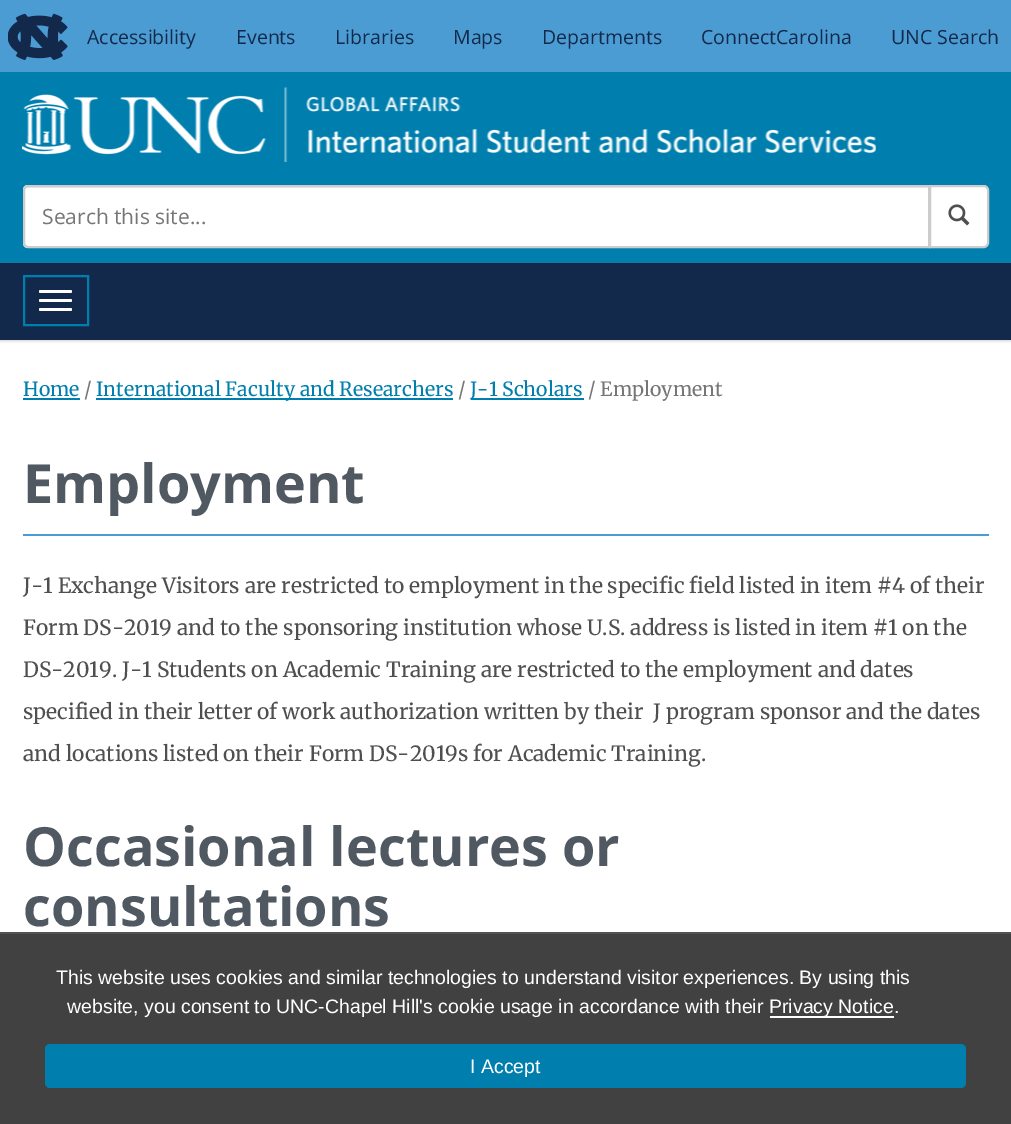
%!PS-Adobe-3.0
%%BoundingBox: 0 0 1011 1124
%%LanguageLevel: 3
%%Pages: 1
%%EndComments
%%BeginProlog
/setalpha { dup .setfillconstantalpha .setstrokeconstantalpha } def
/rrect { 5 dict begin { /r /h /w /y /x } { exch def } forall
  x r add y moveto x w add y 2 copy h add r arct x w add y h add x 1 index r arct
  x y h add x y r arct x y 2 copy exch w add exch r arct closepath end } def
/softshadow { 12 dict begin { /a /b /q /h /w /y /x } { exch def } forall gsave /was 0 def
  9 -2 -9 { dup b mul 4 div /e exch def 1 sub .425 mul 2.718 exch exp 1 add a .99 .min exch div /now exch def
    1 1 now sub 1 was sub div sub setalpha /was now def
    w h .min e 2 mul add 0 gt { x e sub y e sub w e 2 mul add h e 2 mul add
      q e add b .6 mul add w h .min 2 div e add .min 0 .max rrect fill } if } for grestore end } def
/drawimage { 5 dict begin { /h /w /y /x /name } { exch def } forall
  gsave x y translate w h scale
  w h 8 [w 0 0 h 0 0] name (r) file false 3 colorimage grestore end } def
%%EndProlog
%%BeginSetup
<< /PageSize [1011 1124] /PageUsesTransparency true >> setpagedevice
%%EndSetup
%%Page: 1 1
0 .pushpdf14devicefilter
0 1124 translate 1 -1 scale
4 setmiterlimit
1 setgray
0 0 1011 1124 rectfill
0.294 0.612 0.827 setrgbcolor
0 0 1011 72 rectfill
(images/1.raw) 8 13 60 47 drawimage
0 0.498 0.682 setrgbcolor
0 72 1011 191 rectfill
(images/2.raw) 22 87 854 75 drawimage
1 setgray
newpath 28 185 moveto 930 185 lineto 930 248 lineto 28 248 lineto 25 248 23 246 23 243 curveto 23 190 lineto 23 187 25 185 28 185 curveto closepath fill
0.925 setgray
newpath 27 188 moveto 928 188 lineto 928 246 lineto 929 246 lineto 929 186 lineto 27 186 lineto 25 186 24 188 24 190 curveto 24 189 25 188 27 188 curveto closepath fill
0.8 setgray
2 setlinewidth
newpath 28 186 moveto 929 186 lineto 929 247 lineto 28 247 lineto 26 247 24 245 24 243 curveto 24 190 lineto 24 188 26 186 28 186 curveto closepath stroke
1 setgray
newpath 930 186 moveto 984 186 lineto 986 186 988 188 988 190 curveto 988 243 lineto 988 245 986 247 984 247 curveto 930 247 lineto closepath gsave fill grestore
0.8 setgray
stroke
(images/3.raw) 948 204 22 22 drawimage
0.392 setgray
0 264 1011 77 0 1.5 0.3 softshadow
0.075 0.161 0.294 setrgbcolor
0 263 1011 77 rectfill
0 0.498 0.682 setrgbcolor
24 276 64 49 rectstroke
1 setgray
39 290 33 3 1.5 rrect fill
39 299 33 3 1.5 rrect fill
39 308 33 3 1.5 rrect fill
0 0.498 0.682 setrgbcolor
23 398 57 2 rectfill
96 398 357 2 rectfill
471 398 113 2 rectfill
0.294 0.612 0.827 setrgbcolor
23 534 966 2 rectfill
0.255 setgray
0 934 1011 190 rectfill
0.318 setgray
0 932 1011 2 rectfill
1 setgray
770 1016 124 2 rectfill
0 0.498 0.682 setrgbcolor
45 1044 921 44 5 rrect fill
/OpenSans-Regular [19.5 0 0 -19.5 0 0] selectfont
0.075 0.161 0.294 setrgbcolor
87 44 moveto (Accessibility) show
236 44 moveto (Events) show
335 44 moveto (Libraries) show
453 44 moveto (Maps) show
542 44 moveto (Departments) show
701 44 moveto (ConnectCarolina) show
891 44 moveto (UNC Search) show
/OpenSans-Regular [21 0 0 -21 0 0] selectfont
0.463 setgray
42 224 moveto (Search this site...) show
/Merriweather-Regular [19.5 0 0 -19.5 0 0] selectfont
0 0.498 0.682 setrgbcolor
23 396 moveto (Home) show
0.463 setgray
84 396 moveto (/) show
0 0.498 0.682 setrgbcolor
96 396 moveto (International Faculty and Researchers) show
0.463 setgray
458 396 moveto (/) show
0 0.498 0.682 setrgbcolor
470 396 moveto (J-1 Scholars) show
0.463 setgray
588 396 moveto (/ Employment) show
/OpenSans-Bold [54 0 0 -54 0 0] selectfont
0.314 0.349 0.384 setrgbcolor
23 503 moveto (Employment) show
/Merriweather-Regular [21 0 0 -21 0 0] selectfont
0.31 setgray
23 593 moveto (J-1 Exchange Visitors are restricted to employment in the specific field listed in item #4 of their) show
23 635 moveto (Form DS-2019 and to the sponsoring institution whose U.S. address is listed in item #1 on the) show
23 677 moveto (DS-2019. J-1 Students on Academic Training are restricted to the employment and dates) show
23 719 moveto (specified in their letter of work authorization written by their  J program sponsor and the dates) show
23 761 moveto (and locations listed on their Form DS-2019s for Academic Training.) show
/OpenSans-Bold [54 0 0 -54 0 0] selectfont
0.314 0.349 0.384 setrgbcolor
23 866 moveto (Occasional lectures or) show
23 926 moveto (consultations) show
/LiberationSans-Regular [19.5 0 0 -19.5 0 0] selectfont
1 setgray
56 984 moveto (This website uses cookies and similar technologies to understand visitor experiences. By using this) show
67 1013 moveto (website, you consent to UNC-Chapel Hill's cookie usage in accordance with their) show
769 1013 moveto (Privacy Notice.) show
470 1073 moveto (I Accept) show
.poppdf14devicefilter showpage
%%EOF
